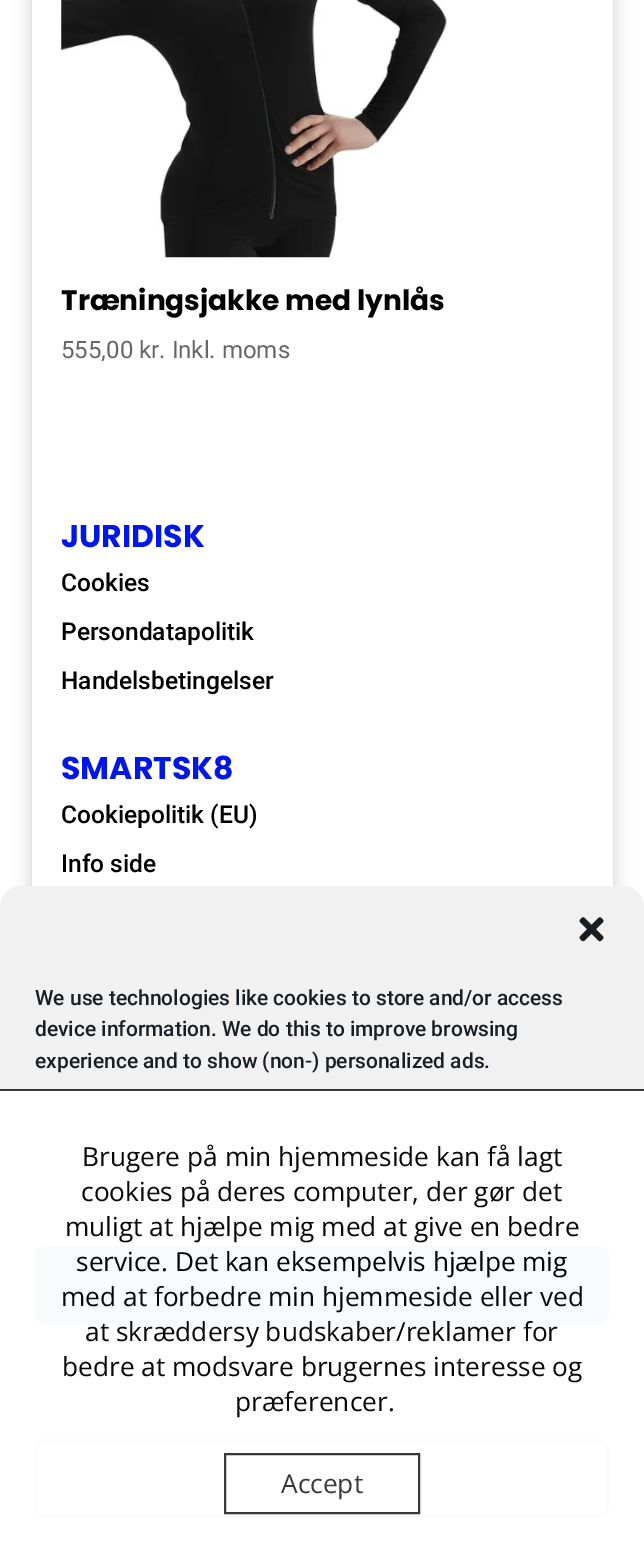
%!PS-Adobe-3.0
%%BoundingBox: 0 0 644 1560
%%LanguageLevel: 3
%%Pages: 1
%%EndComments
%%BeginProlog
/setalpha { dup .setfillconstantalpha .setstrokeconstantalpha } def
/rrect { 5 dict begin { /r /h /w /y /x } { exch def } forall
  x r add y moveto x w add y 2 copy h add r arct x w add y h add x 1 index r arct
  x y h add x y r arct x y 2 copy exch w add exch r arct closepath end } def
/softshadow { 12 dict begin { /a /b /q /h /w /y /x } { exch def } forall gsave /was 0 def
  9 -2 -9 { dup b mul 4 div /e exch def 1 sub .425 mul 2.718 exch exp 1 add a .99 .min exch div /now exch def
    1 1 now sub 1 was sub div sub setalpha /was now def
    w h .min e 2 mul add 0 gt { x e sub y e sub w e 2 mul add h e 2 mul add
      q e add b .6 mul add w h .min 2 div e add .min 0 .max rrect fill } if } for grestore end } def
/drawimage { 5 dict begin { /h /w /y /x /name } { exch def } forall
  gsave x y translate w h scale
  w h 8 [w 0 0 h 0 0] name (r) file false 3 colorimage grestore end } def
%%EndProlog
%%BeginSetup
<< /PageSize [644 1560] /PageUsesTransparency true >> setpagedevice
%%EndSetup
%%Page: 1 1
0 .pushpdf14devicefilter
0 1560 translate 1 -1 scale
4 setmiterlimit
1 setgray
0 0 644 1560 rectfill
0 setgray
32 -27 581 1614 0 9 0.2 softshadow
1 setgray
32 0 581 886 rectfill
(images/1.raw) 61 0 386 258 drawimage
0.945 setgray
0 886 644 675 21 rrect fill
(images/2.raw) 579 917 25 25 drawimage
0.129 0.459 0.608 setrgbcolor
36 1247 572 77 10 rrect gsave fill grestore
2 setlinewidth
stroke
36 1440 572 76 10 rrect stroke
0.97 setalpha
1 setgray
0 1089 644 471 rectfill
0.2 setgray
0 1089 644 2 rectfill
1 setalpha
0.224 setgray
225 1454 194 59 rectstroke
/Poppins-Bold [28 0 0 -28 0 0] selectfont
0 setgray
61 310 moveto (Træningsjakke med lynlås) show
/Roboto-Regular [24 0 0 -24 0 0] selectfont
0.4 setgray
61 358 moveto (555,00 kr. Inkl. moms) show
/Poppins-Bold [31.5 0 0 -31.5 0 0] selectfont
0 0.09 0.91 setrgbcolor
61 547 moveto (JURIDISK) show
/Roboto-Medium [24.5 0 0 -24.5 0 0] selectfont
0 setgray
61 591 moveto (Cookies) show
61 640 moveto (Persondatapolitik) show
61 689 moveto (Handelsbetingelser) show
/Poppins-Bold [31.5 0 0 -31.5 0 0] selectfont
0 0.09 0.91 setrgbcolor
61 779 moveto (SMARTSK8) show
/Roboto-Medium [24.5 0 0 -24.5 0 0] selectfont
0 setgray
61 823 moveto (Cookiepolitik \(EU\)) show
61 872 moveto (Info side) show
/Roboto-Medium [21 0 0 -21 0 0] selectfont
0.098 0.118 0.137 setrgbcolor
35 1005 moveto (We use technologies like cookies to store and/or access) show
35 1036 moveto (device information. We do this to improve browsing) show
35 1068 moveto (experience and to show \(non-\) personalized ads.) show
/OpenSans-Regular [26.25 0 0 -26.25 0 0] selectfont
0.031 setgray
82 1166 moveto (Brugere på min hjemmeside kan få lagt) show
81 1201 moveto (cookies på deres computer, der gør det) show
65 1236 moveto (muligt at hjælpe mig med at give en bedre) show
0 setgray
76 1271 moveto (service. Det kan eksempelvis hjælpe mig) show
0.031 setgray
61 1306 moveto (med at forbedre min hjemmeside eller ved) show
85 1341 moveto (at skræddersy budskaber/reklamer for) show
62 1376 moveto (bedre at modsvare brugernes interesse og) show
235 1411 moveto (præferencer.) show
0.224 setgray
281 1493 moveto (Accept) show
.poppdf14devicefilter showpage
%%EOF
